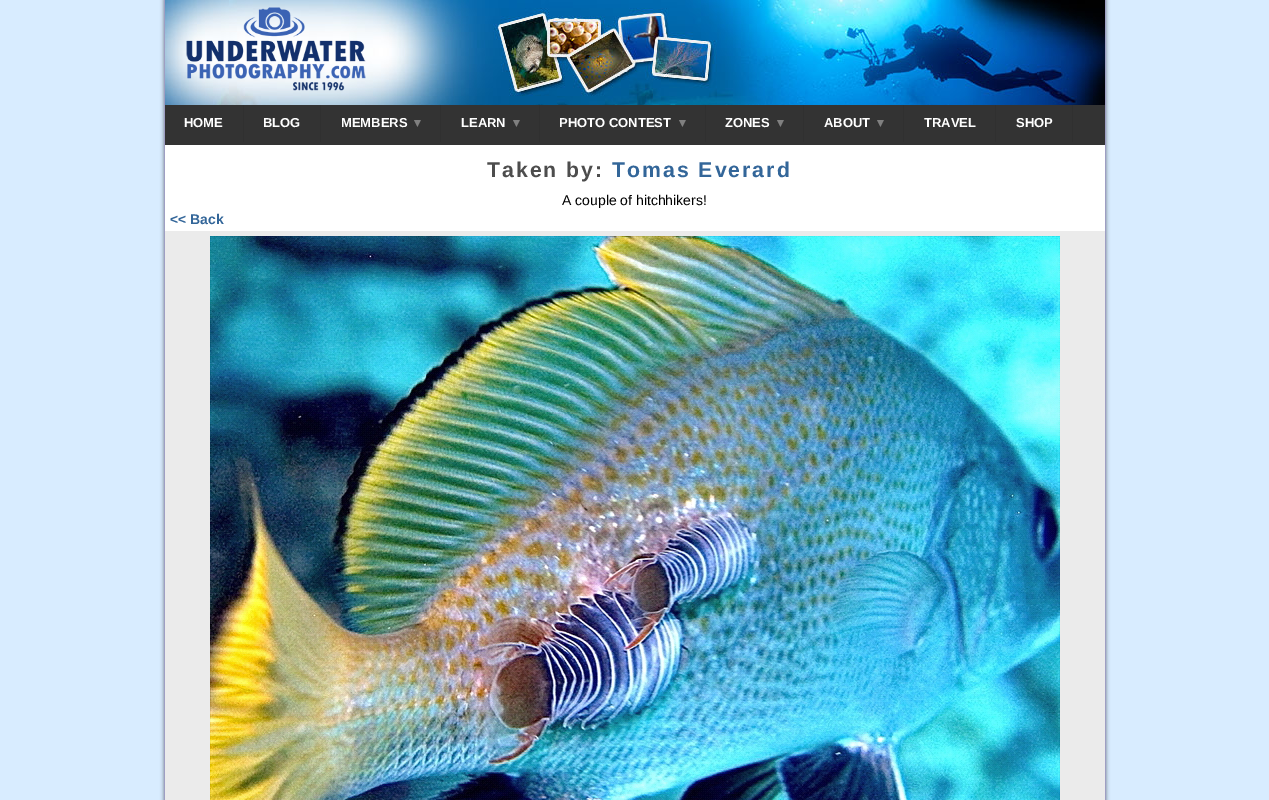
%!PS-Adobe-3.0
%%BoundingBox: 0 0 1269 800
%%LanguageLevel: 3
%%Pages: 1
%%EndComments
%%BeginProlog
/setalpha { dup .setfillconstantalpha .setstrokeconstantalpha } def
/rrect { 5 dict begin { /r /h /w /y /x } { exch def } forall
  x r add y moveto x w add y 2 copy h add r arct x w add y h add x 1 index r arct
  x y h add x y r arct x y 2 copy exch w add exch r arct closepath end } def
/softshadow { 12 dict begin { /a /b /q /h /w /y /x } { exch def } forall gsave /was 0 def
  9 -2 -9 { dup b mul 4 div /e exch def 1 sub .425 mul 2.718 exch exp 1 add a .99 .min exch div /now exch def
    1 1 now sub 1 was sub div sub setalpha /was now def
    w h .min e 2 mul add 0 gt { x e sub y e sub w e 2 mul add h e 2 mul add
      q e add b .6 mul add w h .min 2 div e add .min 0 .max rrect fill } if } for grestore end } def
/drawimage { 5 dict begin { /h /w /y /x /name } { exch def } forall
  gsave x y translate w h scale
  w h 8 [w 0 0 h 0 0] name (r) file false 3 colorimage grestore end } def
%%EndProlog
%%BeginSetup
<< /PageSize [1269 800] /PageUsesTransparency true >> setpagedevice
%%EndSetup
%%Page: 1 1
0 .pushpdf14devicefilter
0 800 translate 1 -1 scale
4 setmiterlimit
0.847 0.925 1 setrgbcolor
0 0 1269 800 rectfill
0 setgray
164 0 942 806 0 2 0.5 softshadow
1 setgray
165 145 940 86 rectfill
0.62 0.62 0.765 setrgbcolor
1105 0 1 800 rectfill
164 0 1 800 rectfill
(images/1.raw) 165 0 940 105 drawimage
(images/2.raw) 186 7 180 84 drawimage
0.2 setgray
165 105 940 40 rectfill
0.188 setgray
243 105 1 37 rectfill
320 105 1 37 rectfill
440 105 1 37 rectfill
539 105 1 37 rectfill
705 105 1 37 rectfill
803 105 1 37 rectfill
903 105 1 37 rectfill
995 105 1 37 rectfill
1072 105 1 37 rectfill
0.922 setgray
165 231 940 569 rectfill
(images/3.raw) 210 236 850 564 drawimage
/LiberationSans-Bold [13 0 0 -13 0 0] selectfont
1 setgray
184 127 moveto (HOME) show
263 127 moveto (BLOG) show
341 127 moveto (MEMBERS) show
/DejaVuSans-Bold [13 0 0 -13 0 0] selectfont
0.502 setgray
414 127 moveto (▾) show
/LiberationSans-Bold [13 0 0 -13 0 0] selectfont
1 setgray
461 127 moveto (LEARN) show
/DejaVuSans-Bold [13 0 0 -13 0 0] selectfont
0.502 setgray
513 127 moveto (▾) show
/LiberationSans-Bold [13 0 0 -13 0 0] selectfont
1 setgray
559 127 moveto (PHOTO CONTEST) show
/DejaVuSans-Bold [13 0 0 -13 0 0] selectfont
0.502 setgray
679 127 moveto (▾) show
/LiberationSans-Bold [13 0 0 -13 0 0] selectfont
1 setgray
725 127 moveto (ZONES) show
/DejaVuSans-Bold [13 0 0 -13 0 0] selectfont
0.502 setgray
777 127 moveto (▾) show
/LiberationSans-Bold [13 0 0 -13 0 0] selectfont
1 setgray
824 127 moveto (ABOUT) show
/DejaVuSans-Bold [13 0 0 -13 0 0] selectfont
0.502 setgray
877 127 moveto (▾) show
/LiberationSans-Bold [13 0 0 -13 0 0] selectfont
1 setgray
924 127 moveto (TRAVEL) show
1016 127 moveto (SHOP) show
/LiberationSans-Bold [21.25 0 0 -21.25 0 0] selectfont
0.302 setgray
487 177 moveto 2 0 (Taken by:) ashow
0.2 0.4 0.6 setrgbcolor
612 177 moveto 2 0 (Tomas Everard) ashow
/LiberationSans-Regular [14 0 0 -14 0 0] selectfont
0 setgray
562 205 moveto (A couple of hitchhikers!) show
/LiberationSans-Bold [14 0 0 -14 0 0] selectfont
0.2 0.4 0.6 setrgbcolor
170 224 moveto (<< Back) show
.poppdf14devicefilter showpage
%%EOF
